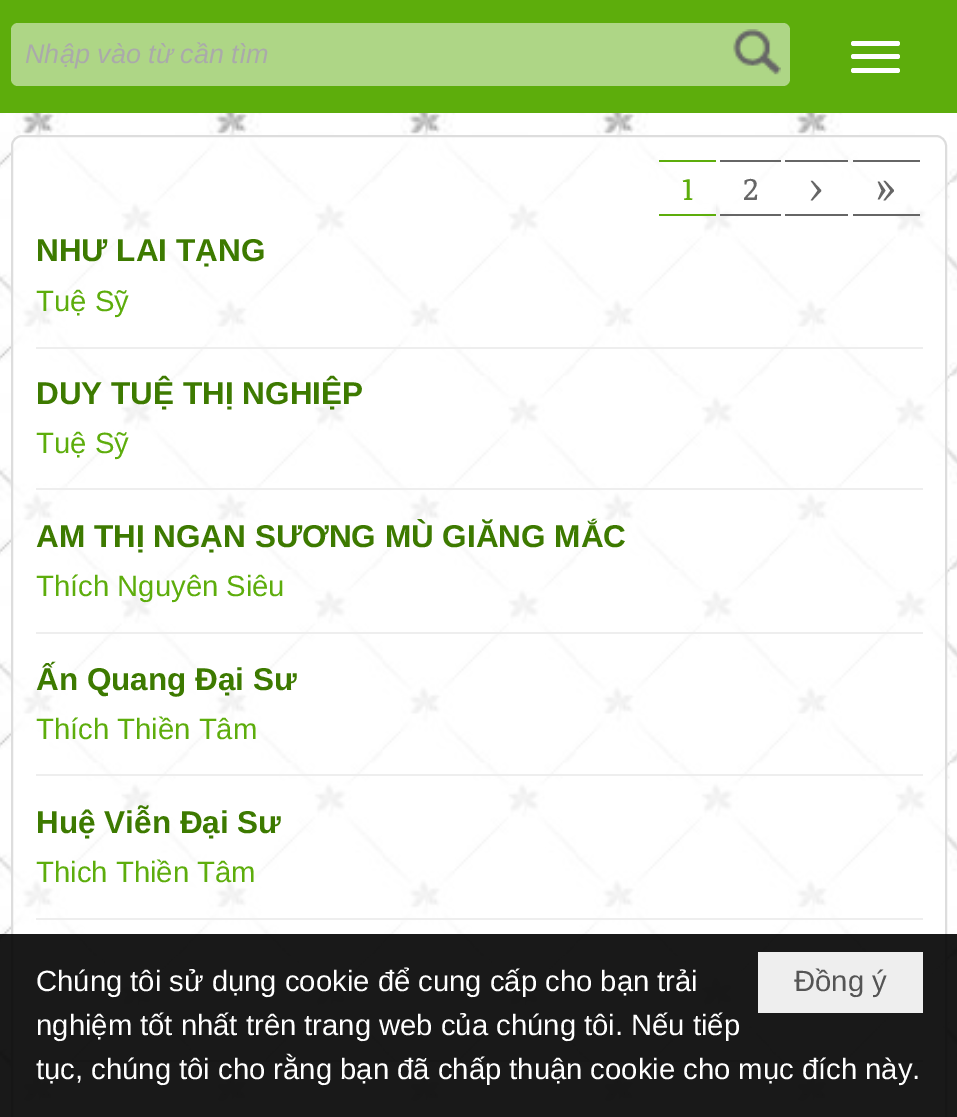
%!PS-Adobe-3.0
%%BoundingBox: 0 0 957 1117
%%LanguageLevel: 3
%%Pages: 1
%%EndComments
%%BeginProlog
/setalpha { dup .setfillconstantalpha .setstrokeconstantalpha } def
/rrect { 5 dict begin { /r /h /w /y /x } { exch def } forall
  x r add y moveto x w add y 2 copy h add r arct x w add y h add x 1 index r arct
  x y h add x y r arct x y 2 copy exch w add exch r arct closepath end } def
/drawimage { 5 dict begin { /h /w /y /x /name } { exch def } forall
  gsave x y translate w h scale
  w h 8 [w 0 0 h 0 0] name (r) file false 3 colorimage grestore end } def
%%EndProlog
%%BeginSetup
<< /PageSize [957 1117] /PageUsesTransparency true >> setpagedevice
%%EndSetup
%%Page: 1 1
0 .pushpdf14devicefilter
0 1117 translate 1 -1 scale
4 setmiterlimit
1 setgray
0 0 957 1117 rectfill
(images/1.raw) 0 113 957 1004 drawimage
0.365 0.678 0.047 setrgbcolor
0 0 957 113 rectfill
1 setgray
851 41 49 5 2.5 rrect fill
851 54 49 5 2.5 rrect fill
851 68 49 5 2.5 rrect fill
0.682 0.839 0.525 setrgbcolor
11 23 779 63 7 rrect fill
(images/2.raw) 733 29 48 46 drawimage
0.8 setalpha
1 setgray
12 136 934 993 10 rrect fill
1 setalpha
0.867 setgray
2 setlinewidth
12 136 934 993 10 rrect stroke
0.5 setalpha
1 setgray
659 163 57 51 rectfill
1 setalpha
0.365 0.678 0.047 setrgbcolor
659 160 57 2 rectfill
659 214 57 2 rectfill
0.5 setalpha
1 setgray
720 162 57 52 rectfill
1 setalpha
0.4 setgray
720 160 61 2 rectfill
720 214 61 2 rectfill
785 160 63 2 rectfill
785 214 63 2 rectfill
0.5 setalpha
1 setgray
853 163 67 51 rectfill
1 setalpha
0.4 setgray
853 160 67 2 rectfill
853 214 67 2 rectfill
0.933 setgray
36 488 887 2 rectfill
36 347 887 2 rectfill
36 774 887 2 rectfill
36 632 887 2 rectfill
36 1060 887 2 rectfill
36 918 887 2 rectfill
0.9 setalpha
0 setgray
0 934 957 183 rectfill
1 setalpha
0.933 setgray
758 952 165 61 rectfill
/LiberationSans-Italic [27 0 0 -27 0 0] selectfont
0.667 setgray
25 63 moveto (Nhập vào từ cần tìm) show
/NoticiaText-Regular [31.5 0 0 -31.5 0 0] selectfont
0.365 0.678 0.047 setrgbcolor
682 200 moveto (1) show
0.4 setgray
743 200 moveto (2) show
/NoticiaText-Regular [45 0 0 -45 0 0] selectfont
807 203 moveto (›) show
874 203 moveto (») show
/LiberationSans-Bold [31.5 0 0 -31.5 0 0] selectfont
0.239 0.478 0 setrgbcolor
36 261 moveto (NHƯ LAI TẠNG) show
/LiberationSans-Regular [29.25 0 0 -29.25 0 0] selectfont
0.365 0.678 0.047 setrgbcolor
36 311 moveto (Tuệ Sỹ) show
/LiberationSans-Bold [31.5 0 0 -31.5 0 0] selectfont
0.239 0.478 0 setrgbcolor
36 404 moveto (DUY TUỆ THỊ NGHIỆP) show
/LiberationSans-Regular [29.25 0 0 -29.25 0 0] selectfont
0.365 0.678 0.047 setrgbcolor
36 453 moveto (Tuệ Sỹ) show
/LiberationSans-Bold [31.5 0 0 -31.5 0 0] selectfont
0.239 0.478 0 setrgbcolor
36 547 moveto (AM THỊ NGẠN SƯƠNG MÙ GIĂNG MẮC) show
/LiberationSans-Regular [29.25 0 0 -29.25 0 0] selectfont
0.365 0.678 0.047 setrgbcolor
36 596 moveto (Thích Nguyên Siêu) show
/LiberationSans-Bold [31.5 0 0 -31.5 0 0] selectfont
0.239 0.478 0 setrgbcolor
36 690 moveto (Ấn Quang Đại Sư) show
/LiberationSans-Regular [29.25 0 0 -29.25 0 0] selectfont
0.365 0.678 0.047 setrgbcolor
36 739 moveto (Thích Thiền Tâm) show
/LiberationSans-Bold [31.5 0 0 -31.5 0 0] selectfont
0.239 0.478 0 setrgbcolor
36 833 moveto (Huệ Viễn Đại Sư) show
/LiberationSans-Regular [29.25 0 0 -29.25 0 0] selectfont
0.365 0.678 0.047 setrgbcolor
36 882 moveto (Thich Thiền Tâm) show
1 setgray
36 991 moveto (Chúng tôi sử dụng cookie để cung cấp cho bạn trải) show
36 1035 moveto (nghiệm tốt nhất trên trang web của chúng tôi. Nếu tiếp) show
36 1079 moveto (tục, chúng tôi cho rằng bạn đã chấp thuận cookie cho mục đích này.) show
0.333 setgray
794 991 moveto (Đồng ý) show
.poppdf14devicefilter showpage
%%EOF
